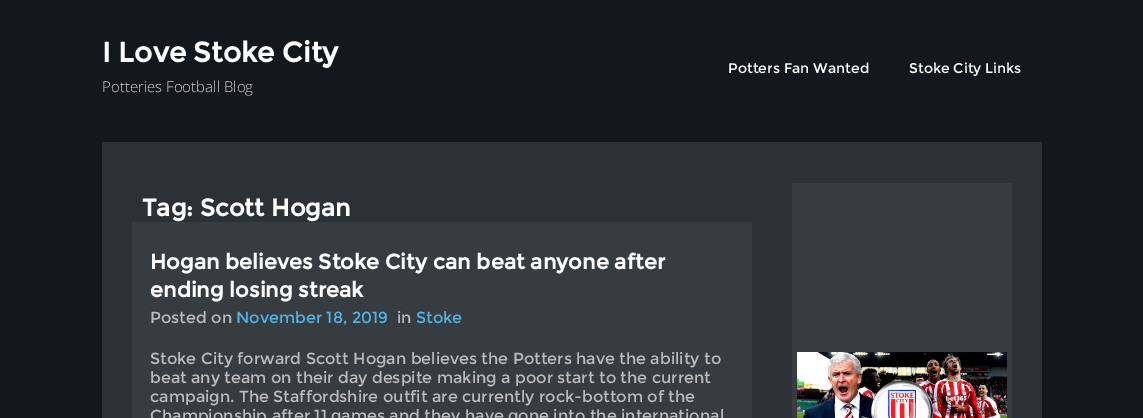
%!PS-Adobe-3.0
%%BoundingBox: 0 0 1143 418
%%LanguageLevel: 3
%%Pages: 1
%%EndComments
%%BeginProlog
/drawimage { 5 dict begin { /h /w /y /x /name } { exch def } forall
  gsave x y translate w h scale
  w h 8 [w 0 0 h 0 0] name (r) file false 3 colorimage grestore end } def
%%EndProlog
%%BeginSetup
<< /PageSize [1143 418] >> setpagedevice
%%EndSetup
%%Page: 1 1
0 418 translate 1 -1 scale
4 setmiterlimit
0.075 0.094 0.118 setrgbcolor
0 0 1143 418 rectfill
0.173 0.192 0.212 setrgbcolor
102 142 940 276 rectfill
0.216 0.235 0.251 setrgbcolor
132 222 620 196 rectfill
792 183 220 235 rectfill
(images/1.raw) 797 352 210 66 drawimage
/Montserrat-Bold [28 0 0 -28 0 0] selectfont
1 setgray
102 62 moveto (I Love Stoke City) show
/OpenSans-Light [15 0 0 -15 0 0] selectfont
0.816 0.82 0.824 setrgbcolor
102 92 moveto (Potteries Football Blog) show
/Montserrat-Regular [14 0 0 -14 0 0] selectfont
1 setgray
728 73 moveto (Potters Fan Wanted) show
909 73 moveto (Stoke City Links) show
/Montserrat-Bold [24 0 0 -24 0 0] selectfont
142 216 moveto (Tag: Scott Hogan) show
/Montserrat-Bold [21 0 0 -21 0 0] selectfont
150 269 moveto (Hogan believes Stoke City can beat anyone after) show
150 297 moveto (ending losing streak) show
/Montserrat-Regular [16 0 0 -16 0 0] selectfont
0.733 setgray
150 323 moveto (Posted on) show
0.318 0.71 0.89 setrgbcolor
236 323 moveto (November 18, 2019) show
0.733 setgray
397 323 moveto (in) show
0.318 0.71 0.89 setrgbcolor
416 323 moveto (Stoke) show
0.733 setgray
150 364 moveto (Stoke City forward Scott Hogan believes the Potters have the ability to) show
150 383 moveto (beat any team on their day despite making a poor start to the current) show
150 402 moveto (campaign. The Staffordshire outfit are currently rock-bottom of the) show
150 421 moveto (Championship after 11 games and they have gone into the international) show
showpage
%%EOF
